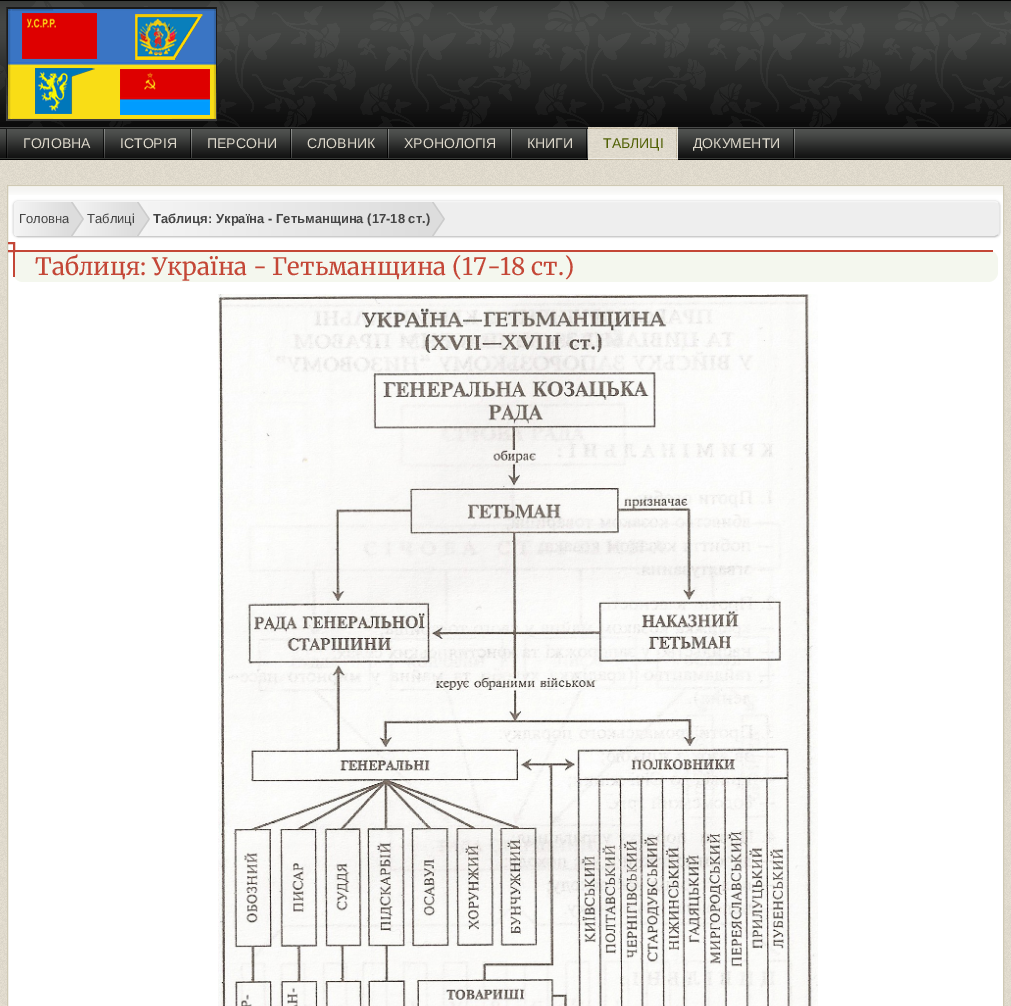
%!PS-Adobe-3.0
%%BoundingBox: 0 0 1011 1006
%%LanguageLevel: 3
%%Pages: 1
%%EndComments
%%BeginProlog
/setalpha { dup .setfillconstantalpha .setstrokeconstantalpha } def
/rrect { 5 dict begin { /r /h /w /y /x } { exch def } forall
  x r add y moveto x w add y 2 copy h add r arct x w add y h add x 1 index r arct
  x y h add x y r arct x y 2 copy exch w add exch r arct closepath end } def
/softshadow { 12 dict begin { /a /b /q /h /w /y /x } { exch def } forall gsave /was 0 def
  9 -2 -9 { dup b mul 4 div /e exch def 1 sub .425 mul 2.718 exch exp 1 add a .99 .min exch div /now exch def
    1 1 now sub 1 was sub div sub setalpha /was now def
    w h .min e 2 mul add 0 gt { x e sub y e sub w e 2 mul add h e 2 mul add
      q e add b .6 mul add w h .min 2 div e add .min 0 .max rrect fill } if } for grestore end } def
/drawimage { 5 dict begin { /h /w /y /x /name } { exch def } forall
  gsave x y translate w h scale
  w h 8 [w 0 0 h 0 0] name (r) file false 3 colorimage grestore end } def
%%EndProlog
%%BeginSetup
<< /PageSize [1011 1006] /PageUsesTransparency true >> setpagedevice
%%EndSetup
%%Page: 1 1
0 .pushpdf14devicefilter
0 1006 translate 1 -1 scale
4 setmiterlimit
1 setgray
0 0 1011 1006 rectfill
(images/1.raw) 0 160 1011 846 drawimage
(images/2.raw) 0 0 1011 160 drawimage
(images/3.raw) 6 7 211 114 drawimage
(images/4.raw) 6 128 2 30 drawimage
(images/5.raw) 8 128 97 30 drawimage
(images/6.raw) 105 128 87 30 drawimage
(images/7.raw) 192 128 100 30 drawimage
(images/5.raw) 292 128 97 30 drawimage
(images/8.raw) 389 128 123 30 drawimage
(images/9.raw) 512 128 76 30 drawimage
(images/10.raw) 588 127 90 33 drawimage
(images/11.raw) 678 128 117 30 drawimage
8 186 995 820 rectfill
(images/12.raw) 8 187 995 8 drawimage
0.812 0.788 0.706 setrgbcolor
7.5 185.5 996 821 rectstroke
0 setgray
13 201 987 36 5 1 0.2 softshadow
0.933 setgray
13 201 987 36 5 rrect fill
0.961 setgray
newpath 15 203 moveto 18 201.5 lineto 995 201.5 lineto 998 203 lineto stroke
0.898 setgray
newpath 998 203 moveto 999 203.5 999.5 205 999.5 206 curveto 999.5 232 lineto 999.5 233 999 234.5 998 235 curveto stroke
0.8 setgray
newpath 998 235 moveto 995 236.5 lineto 18 236.5 lineto 15 235 lineto stroke
0.898 setgray
newpath 15 235 moveto 14 234.5 13.5 233 13.5 232 curveto 13.5 206 lineto 13.5 205 14 203.5 15 203 curveto stroke
gsave
14 202 985 34 4 rrect clip newpath
gsave newpath 19 202 moveto 69 202 lineto 69 236 lineto 19 236 lineto 16 236 14 234 14 231 curveto 14 207 lineto 14 204 16 202 19 202 curveto closepath clip newpath
<< /ShadingType 2 /ColorSpace /DeviceRGB /Coords [14 219 69 219] /Extend [true true] /Function << /FunctionType 2 /Domain [0 1] /C0 [0.961 0.961 0.961] /C1 [0.867 0.867 0.867] /N 1 >> >> shfill grestore
grestore
gsave newpath 70 202 moveto 135 202 lineto 135 236 lineto 70 236 lineto closepath clip newpath
<< /ShadingType 2 /ColorSpace /DeviceRGB /Coords [69 219 135 219] /Extend [true true] /Function << /FunctionType 2 /Domain [0 1] /C0 [0.961 0.961 0.961] /C1 [0.867 0.867 0.867] /N 1 >> >> shfill grestore
0.8 setgray
newpath 72.5 202 moveto 84 219 lineto 72.5 236 lineto 71 236 lineto 71 202 lineto closepath fill
gsave newpath 136 202 moveto 430 202 lineto 430 236 lineto 136 236 lineto closepath clip newpath
<< /ShadingType 2 /ColorSpace /DeviceRGB /Coords [135 219 430 219] /Extend [true true] /Function << /FunctionType 2 /Domain [0 1] /C0 [0.961 0.961 0.961] /C1 [0.867 0.867 0.867] /N 1 >> >> shfill grestore
newpath 138.5 202 moveto 150 219 lineto 138.5 236 lineto 137 236 lineto 137 202 lineto closepath fill
0.867 setgray
newpath 136.5 202 moveto 148 219 lineto 136.5 236 lineto 135 236 lineto 135 202 lineto closepath fill
0.8 setgray
newpath 433.5 202 moveto 445 219 lineto 433.5 236 lineto 432 236 lineto 432 202 lineto closepath fill
0.867 setgray
newpath 431.5 202 moveto 443 219 lineto 431.5 236 lineto 430 236 lineto 430 202 lineto closepath fill
0.957 0.969 0.933 setrgbcolor
newpath 13 250 moveto 988 250 lineto 993.5 250 998 254.5 998 260 curveto 998 272 lineto 998 277.5 993.5 282 988 282 curveto 23 282 lineto 17.5 282 13 277.5 13 272 curveto closepath fill
0.769 0.278 0.216 setrgbcolor
13 250 980 2 rectfill
13 250 2 27 rectfill
gsave
8 186 995 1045 rectclip
2 setlinewidth
6 243 8 8 rectstroke
grestore
(images/13.raw) 218 294 600 712 drawimage
/LiberationSans-Regular [14 0 0 -14 0 0] selectfont
0.867 0.847 0.796 setrgbcolor
23 148 moveto (ГОЛОВНА) show
120 148 moveto (ІСТОРІЯ) show
207 148 moveto (ПЕРСОНИ) show
307 148 moveto (СЛОВНИК) show
404 148 moveto (ХРОНОЛОГІЯ) show
527 148 moveto (КНИГИ) show
0.314 0.376 0.016 setrgbcolor
603 148 moveto (ТАБЛИЦІ) show
0.867 0.847 0.796 setrgbcolor
693 148 moveto (ДОКУМЕНТИ) show
/LiberationSans-Regular [13 0 0 -13 0 0] selectfont
0.267 setgray
19 223 moveto (Головна) show
0.867 setgray
newpath 70.5 202 moveto 82 219 lineto 70.5 236 lineto 69 236 lineto 69 202 lineto closepath fill
0.267 setgray
87 223 moveto (Таблиці) show
/LiberationSans-Bold [13 0 0 -13 0 0] selectfont
153 223 moveto (Таблиця: Україна - Гетьманщина \(17-18 ст.\)) show
/Merriweather-Regular [24 0 0 -24 0 0] selectfont
0.769 0.278 0.216 setrgbcolor
35 275 moveto (Таблиця: Україна - Гетьманщина \(17-18 ст.\)) show
.poppdf14devicefilter showpage
%%EOF
